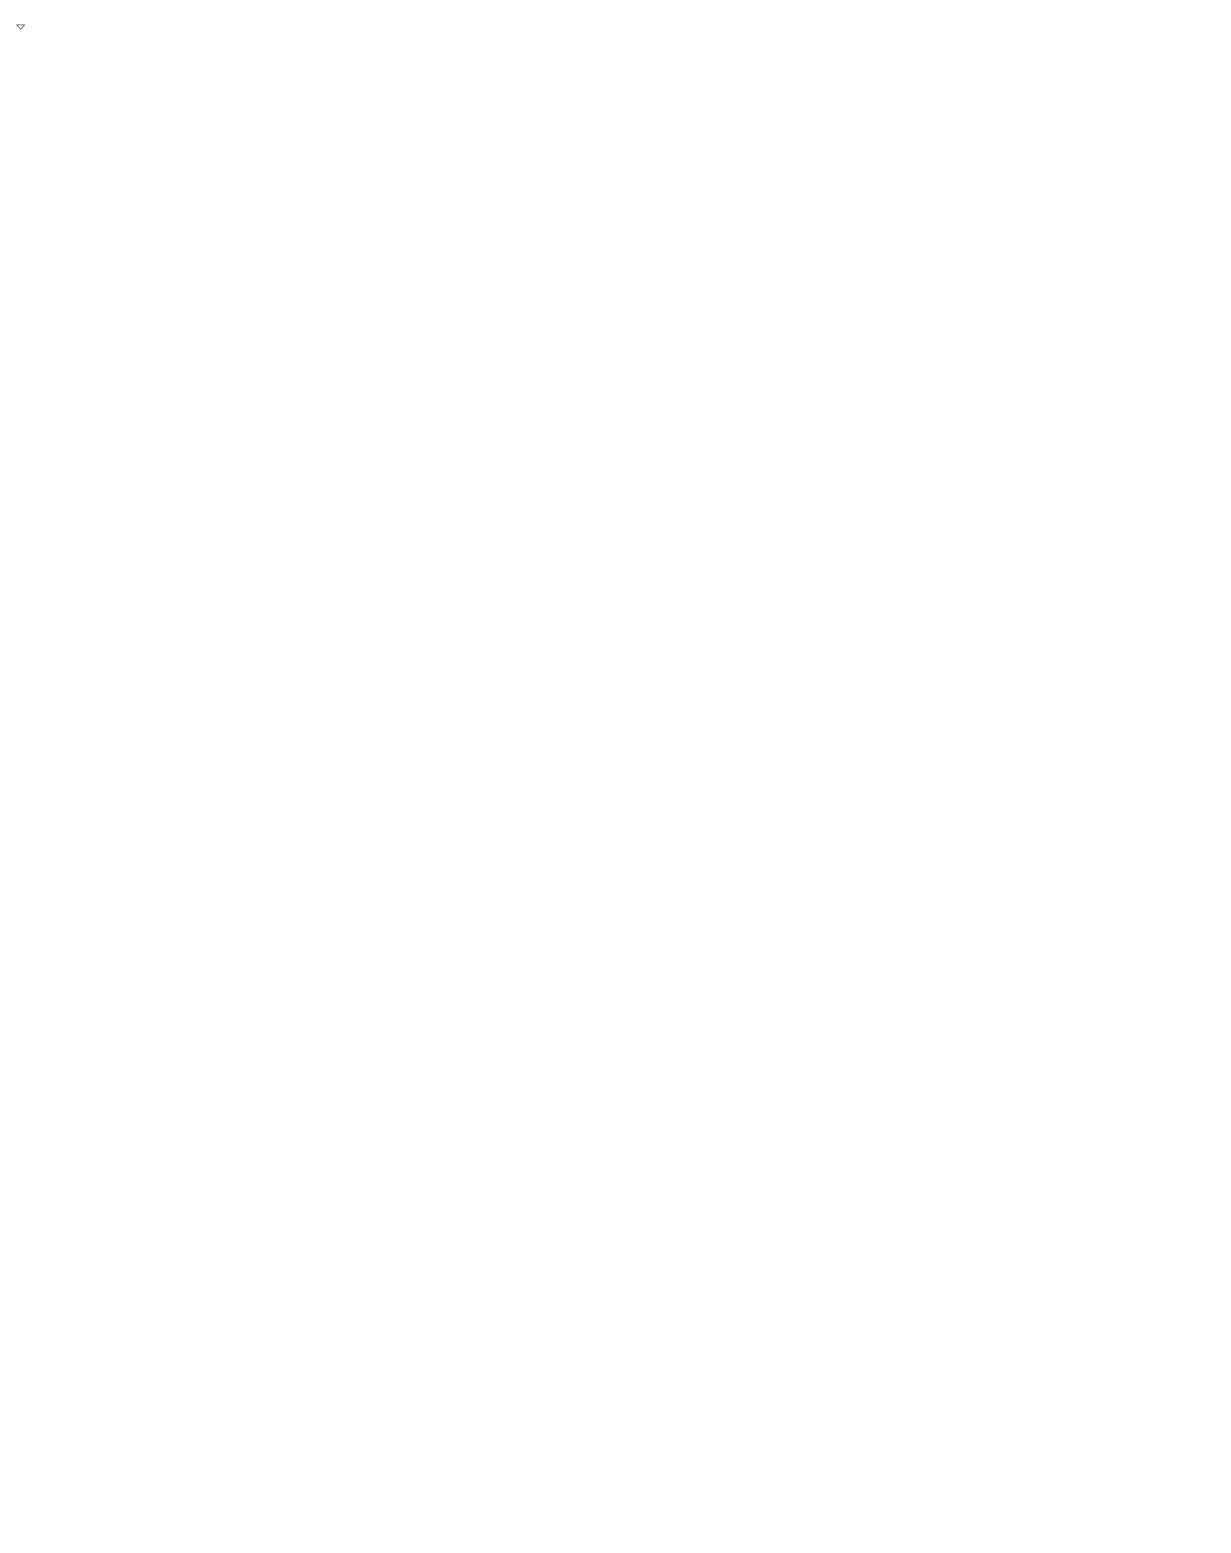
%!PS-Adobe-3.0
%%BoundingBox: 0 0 1231 1553
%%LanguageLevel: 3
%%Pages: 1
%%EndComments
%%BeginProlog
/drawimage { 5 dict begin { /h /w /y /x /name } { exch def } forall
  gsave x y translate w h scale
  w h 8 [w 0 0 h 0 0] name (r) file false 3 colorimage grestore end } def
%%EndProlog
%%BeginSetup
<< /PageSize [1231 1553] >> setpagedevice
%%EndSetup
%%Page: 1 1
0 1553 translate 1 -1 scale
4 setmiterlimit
1 setgray
0 0 1231 1553 rectfill
(images/1.raw) 15 24 11 6 drawimage
showpage
%%EOF
